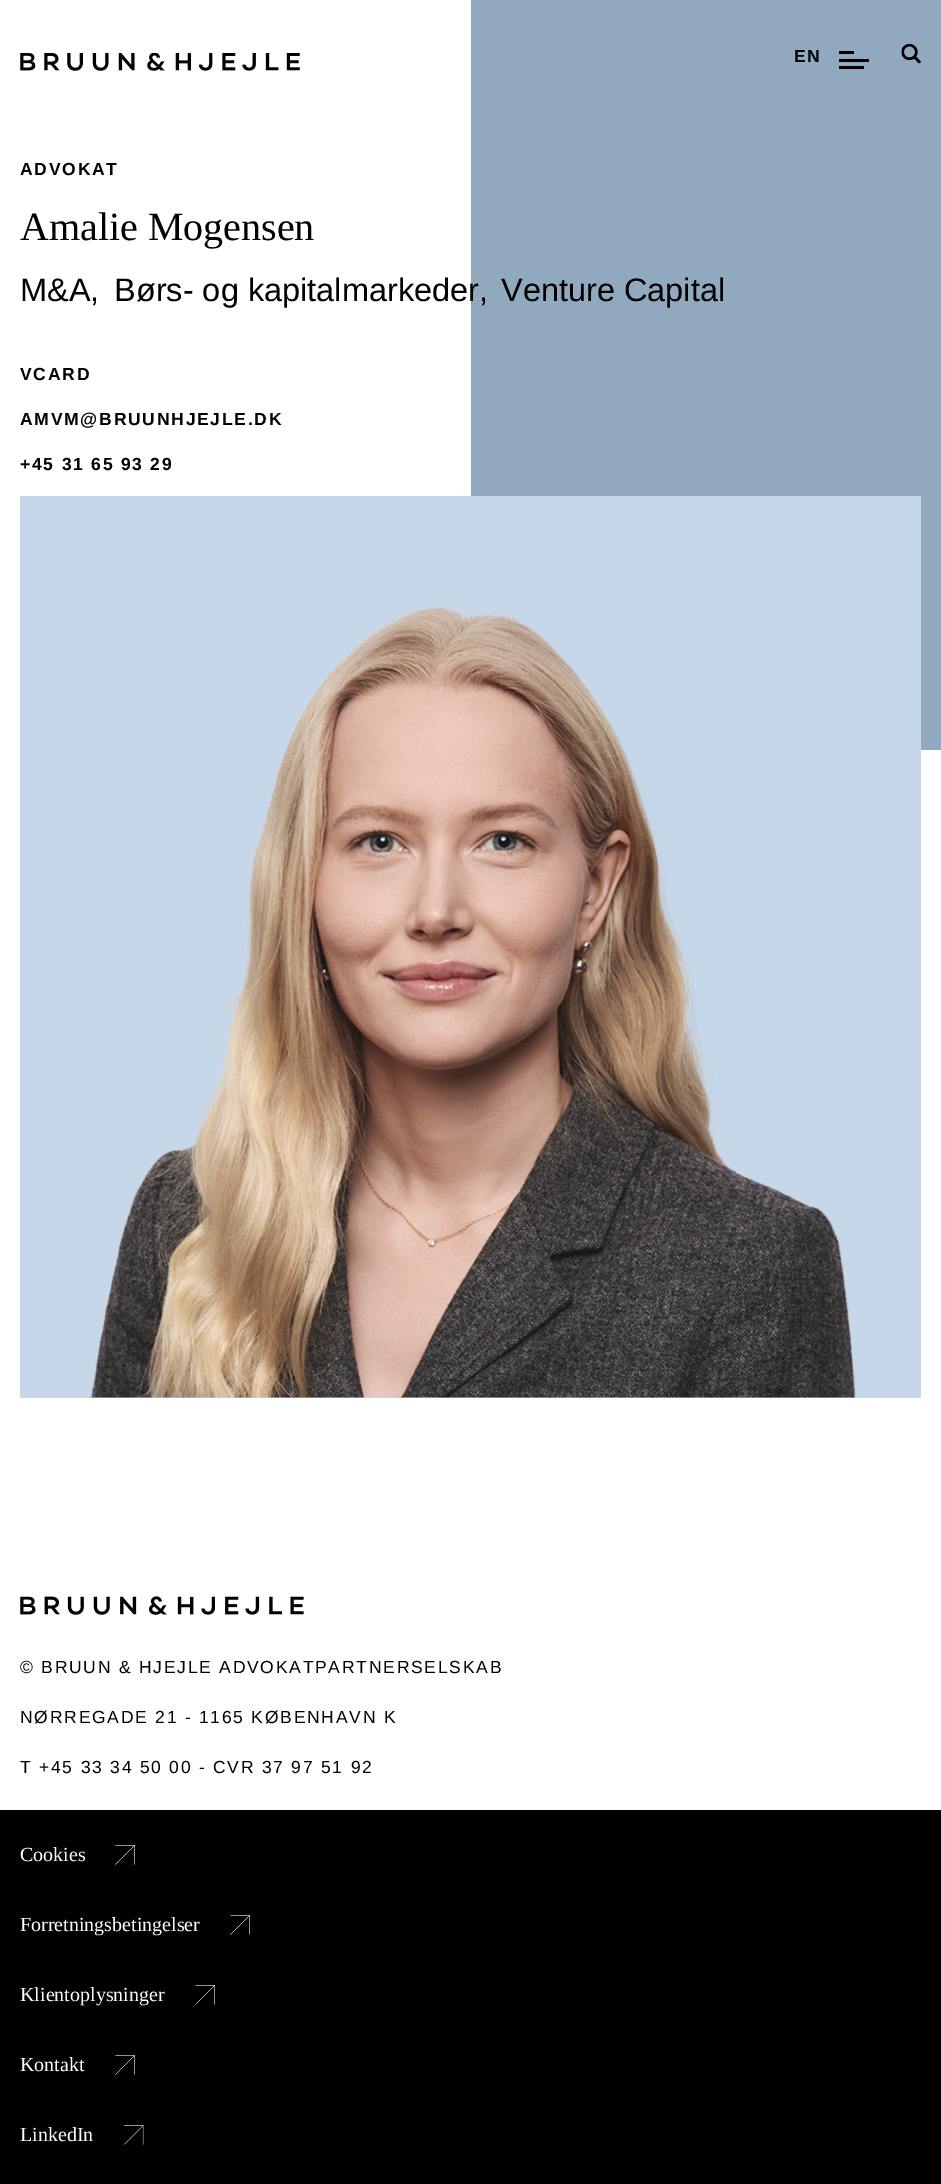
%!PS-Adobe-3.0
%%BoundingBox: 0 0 941 2184
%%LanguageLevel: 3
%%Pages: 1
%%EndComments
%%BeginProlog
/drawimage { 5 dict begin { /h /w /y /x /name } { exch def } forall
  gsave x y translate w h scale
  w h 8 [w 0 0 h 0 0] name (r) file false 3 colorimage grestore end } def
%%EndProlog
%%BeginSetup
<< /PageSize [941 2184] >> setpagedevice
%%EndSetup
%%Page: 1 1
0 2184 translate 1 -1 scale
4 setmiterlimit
1 setgray
0 0 941 2184 rectfill
(images/1.raw) 20 53 280 18 drawimage
0.569 0.663 0.745 setrgbcolor
471 0 470 750 rectfill
0 setgray
839 51 15 3 rectfill
839 59 30 3 rectfill
839 66 25 3 rectfill
(images/2.raw) 901 44 20 20 drawimage
0.776 0.843 0.914 setrgbcolor
20 496 901 902 rectfill
(images/3.raw) 90 605 766 793 drawimage
(images/4.raw) 20 1596 284 19 drawimage
0 setgray
0 1810 941 374 rectfill
(images/5.raw) 115 1845 20 20 drawimage
(images/5.raw) 230 1915 20 20 drawimage
(images/5.raw) 195 1985 20 20 drawimage
(images/5.raw) 115 2055 20 20 drawimage
(images/6.raw) 124 2125 20 20 drawimage
/LiberationSans-Bold [17.5 0 0 -17.5 0 0] selectfont
794 62 moveto 1.75 0 (EN) ashow
20 175 moveto 1.75 0 (ADVOKAT) ashow
/LiberationSerif-Regular [40 0 0 -40 0 0] selectfont
20 240 moveto (Amalie Mogensen) show
/LiberationSans-Regular [32.5 0 0 -32.5 0 0] selectfont
20 301 moveto (M&A,) show
114 301 moveto (Børs- og kapitalmarkeder,) show
501 301 moveto (Venture Capital) show
/LiberationSans-Bold [17.5 0 0 -17.5 0 0] selectfont
20 380 moveto 1.75 0 (VCARD) ashow
20 425 moveto 1.75 0 (AMVM@BRUUNHJEJLE.DK) ashow
20 470 moveto 1.75 0 (+45 31 65 93 29) ashow
/LiberationSans-Regular [17.5 0 0 -17.5 0 0] selectfont
20 1673 moveto 1.75 0 (© BRUUN & HJEJLE ADVOKATPARTNERSELSKAB) ashow
20 1723 moveto 1.75 0 (NØRREGADE 21 - 1165 KØBENHAVN K) ashow
20 1773 moveto 1.75 0 (T +45 33 34 50 00 - CVR 37 97 51 92) ashow
/LiberationSerif-Regular [20 0 0 -20 0 0] selectfont
1 setgray
20 1861 moveto (Cookies) show
20 1931 moveto (Forretningsbetingelser) show
20 2001 moveto (Klientoplysninger) show
20 2071 moveto (Kontakt) show
20 2141 moveto (LinkedIn) show
showpage
%%EOF
